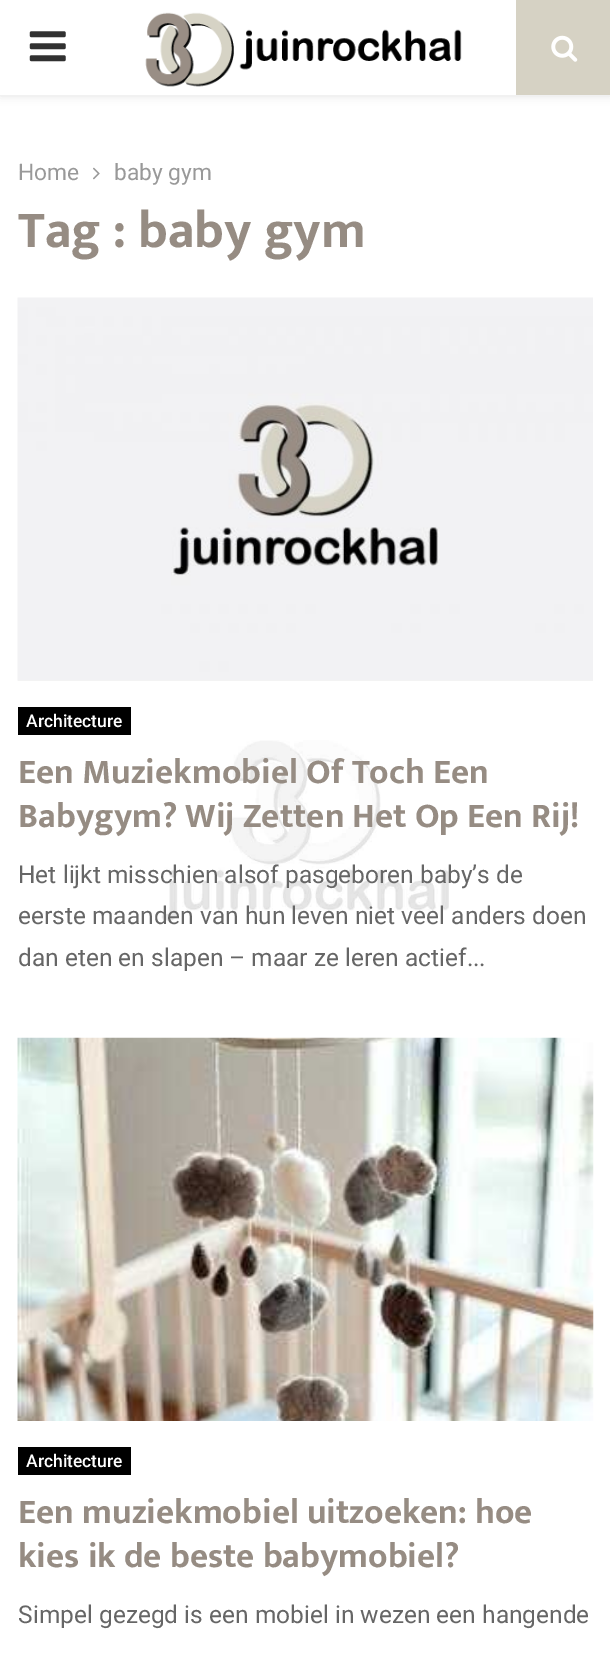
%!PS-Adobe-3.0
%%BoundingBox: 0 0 610 1659
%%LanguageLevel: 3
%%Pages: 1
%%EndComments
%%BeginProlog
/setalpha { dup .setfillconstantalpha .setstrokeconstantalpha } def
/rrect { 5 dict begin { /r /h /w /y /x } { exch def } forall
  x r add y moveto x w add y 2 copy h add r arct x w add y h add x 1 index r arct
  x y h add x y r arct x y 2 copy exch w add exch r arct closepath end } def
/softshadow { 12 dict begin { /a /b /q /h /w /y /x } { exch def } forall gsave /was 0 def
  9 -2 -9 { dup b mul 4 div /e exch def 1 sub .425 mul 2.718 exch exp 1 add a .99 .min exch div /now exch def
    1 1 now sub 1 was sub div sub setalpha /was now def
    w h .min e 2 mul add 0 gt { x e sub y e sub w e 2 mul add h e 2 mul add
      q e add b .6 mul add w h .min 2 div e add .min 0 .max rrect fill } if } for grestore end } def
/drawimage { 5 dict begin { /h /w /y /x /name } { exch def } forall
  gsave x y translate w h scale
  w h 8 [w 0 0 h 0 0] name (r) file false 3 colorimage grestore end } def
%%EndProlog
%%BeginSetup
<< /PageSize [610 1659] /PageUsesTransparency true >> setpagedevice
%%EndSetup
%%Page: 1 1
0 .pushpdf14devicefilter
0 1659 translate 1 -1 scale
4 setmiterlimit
1 setgray
0 0 610 1659 rectfill
(images/1.raw) 161 740 288 181 drawimage
0.745 setgray
0 2 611 94 0 4.5 0.46 softshadow
1 setgray
0 0 516 95 rectfill
(images/2.raw) 29 31 37 31 drawimage
(images/3.raw) 145 12 317 75 drawimage
0.839 0.824 0.769 setrgbcolor
516 0 94 95 rectfill
(images/4.raw) 551 35 27 27 drawimage
(images/5.raw) 93 167 7 13 drawimage
(images/6.raw) 17 297 576 384 drawimage
0 setgray
18 707 113 28 rectfill
(images/7.raw) 17 1037 577 384 drawimage
18 1447 113 28 rectfill
/Roboto-Regular [22.75 0 0 -22.75 0 0] selectfont
0.6 setgray
18 180 moveto (Home) show
114 180 moveto (baby gym) show
/MuktaVaani-Bold [52.5 0 0 -52.5 0 0] selectfont
0.588 0.549 0.514 setrgbcolor
18 247 moveto (Tag : baby gym) show
/Roboto-Medium [17.5 0 0 -17.5 0 0] selectfont
1 setgray
26 727 moveto (Architecture) show
/MuktaVaani-Bold [35 0 0 -35 0 0] selectfont
0.588 0.549 0.514 setrgbcolor
18 783 moveto (Een Muziekmobiel Of Toch Een) show
18 827 moveto (Babygym? Wij Zetten Het Op Een Rij!) show
/Roboto-Regular [24.5 0 0 -24.5 0 0] selectfont
0.4 setgray
18 883 moveto (Het lijkt misschien alsof pasgeboren baby’s de) show
18 924 moveto (eerste maanden van hun leven niet veel anders doen) show
18 966 moveto (dan eten en slapen – maar ze leren actief...) show
/Roboto-Medium [17.5 0 0 -17.5 0 0] selectfont
1 setgray
26 1467 moveto (Architecture) show
/MuktaVaani-Bold [35 0 0 -35 0 0] selectfont
0.588 0.549 0.514 setrgbcolor
18 1523 moveto (Een muziekmobiel uitzoeken: hoe) show
18 1567 moveto (kies ik de beste babymobiel?) show
/Roboto-Regular [24.5 0 0 -24.5 0 0] selectfont
0.4 setgray
18 1623 moveto (Simpel gezegd is een mobiel in wezen een hangende) show
.poppdf14devicefilter showpage
%%EOF
